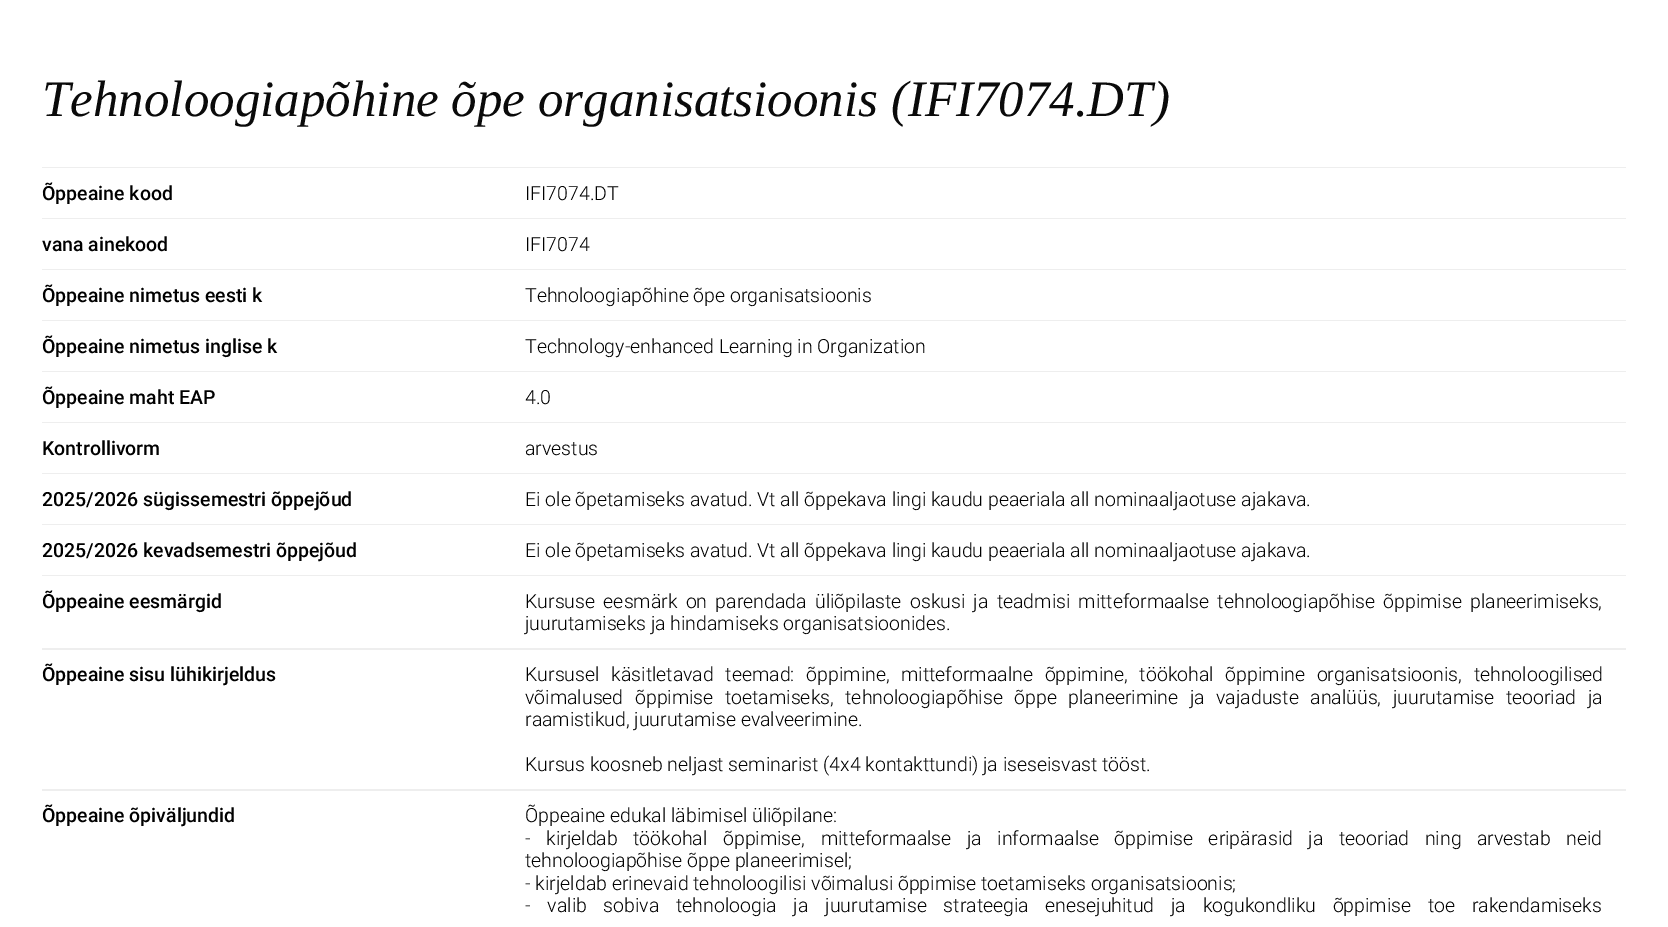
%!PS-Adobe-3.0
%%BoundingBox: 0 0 1668 927
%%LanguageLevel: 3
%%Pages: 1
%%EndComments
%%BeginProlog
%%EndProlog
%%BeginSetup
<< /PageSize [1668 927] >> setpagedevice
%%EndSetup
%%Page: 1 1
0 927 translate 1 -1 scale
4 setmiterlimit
1 setgray
0 0 1668 927 rectfill
0.933 setgray
42 167 1584 1 rectfill
42 218 1584 1 rectfill
42 269 1584 1 rectfill
42 320 1584 1 rectfill
42 371 1584 1 rectfill
42 422 1584 1 rectfill
42 473 1584 1 rectfill
42 524 1584 1 rectfill
42 575 1584 1 rectfill
42 648 1584 2 rectfill
42 789 1584 2 rectfill
/LiberationSerif-Italic [51 0 0 -51 0 0] selectfont
0.039 setgray
42 116 moveto (Tehnoloogiapõhine õpe organisatsioonis \(IFI7074.DT\)) show
/Roboto-Medium [19.5 0 0 -19.5 0 0] selectfont
0 setgray
42 200 moveto (Õppeaine kood) show
/Roboto-Light [19.5 0 0 -19.5 0 0] selectfont
525 200 moveto (IFI7074.DT) show
/Roboto-Medium [19.5 0 0 -19.5 0 0] selectfont
42 251 moveto (vana ainekood) show
/Roboto-Light [19.5 0 0 -19.5 0 0] selectfont
525 251 moveto (IFI7074) show
/Roboto-Medium [19.5 0 0 -19.5 0 0] selectfont
42 302 moveto (Õppeaine nimetus eesti k) show
/Roboto-Light [19.5 0 0 -19.5 0 0] selectfont
525 302 moveto (Tehnoloogiapõhine õpe organisatsioonis) show
/Roboto-Medium [19.5 0 0 -19.5 0 0] selectfont
42 353 moveto (Õppeaine nimetus inglise k) show
/Roboto-Light [19.5 0 0 -19.5 0 0] selectfont
525 353 moveto (Technology-enhanced Learning in Organization) show
/Roboto-Medium [19.5 0 0 -19.5 0 0] selectfont
42 404 moveto (Õppeaine maht EAP) show
/Roboto-Light [19.5 0 0 -19.5 0 0] selectfont
525 404 moveto (4.0) show
/Roboto-Medium [19.5 0 0 -19.5 0 0] selectfont
42 455 moveto (Kontrollivorm) show
/Roboto-Light [19.5 0 0 -19.5 0 0] selectfont
525 455 moveto (arvestus) show
/Roboto-Medium [19.5 0 0 -19.5 0 0] selectfont
42 506 moveto (2025/2026 sügissemestri õppejõud) show
/Roboto-Light [19.5 0 0 -19.5 0 0] selectfont
525 506 moveto (Ei ole õpetamiseks avatud. Vt all õppekava lingi kaudu peaeriala all nominaaljaotuse ajakava.) show
/Roboto-Medium [19.5 0 0 -19.5 0 0] selectfont
42 557 moveto (2025/2026 kevadsemestri õppejõud) show
/Roboto-Light [19.5 0 0 -19.5 0 0] selectfont
525 557 moveto (Ei ole õpetamiseks avatud. Vt all õppekava lingi kaudu peaeriala all nominaaljaotuse ajakava.) show
/Roboto-Medium [19.5 0 0 -19.5 0 0] selectfont
42 608 moveto (Õppeaine eesmärgid) show
/Roboto-Light [19.5 0 0 -19.5 0 0] selectfont
525 608 moveto 3.5 0 32 (Kursuse eesmärk on parendada üliõpilaste oskusi ja teadmisi mitteformaalse tehnoloogiapõhise õppimise planeerimiseks,) widthshow
525 630 moveto (juurutamiseks ja hindamiseks organisatsioonides.) show
/Roboto-Medium [19.5 0 0 -19.5 0 0] selectfont
42 681 moveto (Õppeaine sisu lühikirjeldus) show
/Roboto-Light [19.5 0 0 -19.5 0 0] selectfont
525 681 moveto 7 0 32 (Kursusel käsitletavad teemad: õppimine, mitteformaalne õppimine, töökohal õppimine organisatsioonis, tehnoloogilised) widthshow
525 704 moveto 6.75 0 32 (võimalused õppimise toetamiseks, tehnoloogiapõhise õppe planeerimine ja vajaduste analüüs, juurutamise teooriad ja) widthshow
525 726 moveto (raamistikud, juurutamise evalveerimine.) show
525 771 moveto (Kursus koosneb neljast seminarist \(4x4 kontakttundi\) ja iseseisvast tööst.) show
/Roboto-Medium [19.5 0 0 -19.5 0 0] selectfont
42 822 moveto (Õppeaine õpiväljundid) show
/Roboto-Light [19.5 0 0 -19.5 0 0] selectfont
525 822 moveto (Õppeaine edukal läbimisel üliõpilane:) show
525 845 moveto 10.75 0 32 (- kirjeldab töökohal õppimise, mitteformaalse ja informaalse õppimise eripärasid ja teooriad ning arvestab neid) widthshow
525 867 moveto (tehnoloogiapõhise õppe planeerimisel;) show
525 890 moveto (- kirjeldab erinevaid tehnoloogilisi võimalusi õppimise toetamiseks organisatsioonis;) show
525 912 moveto 12 0 32 (- valib sobiva tehnoloogia ja juurutamise strateegia enesejuhitud ja kogukondliku õppimise toe rakendamiseks) widthshow
showpage
%%EOF
